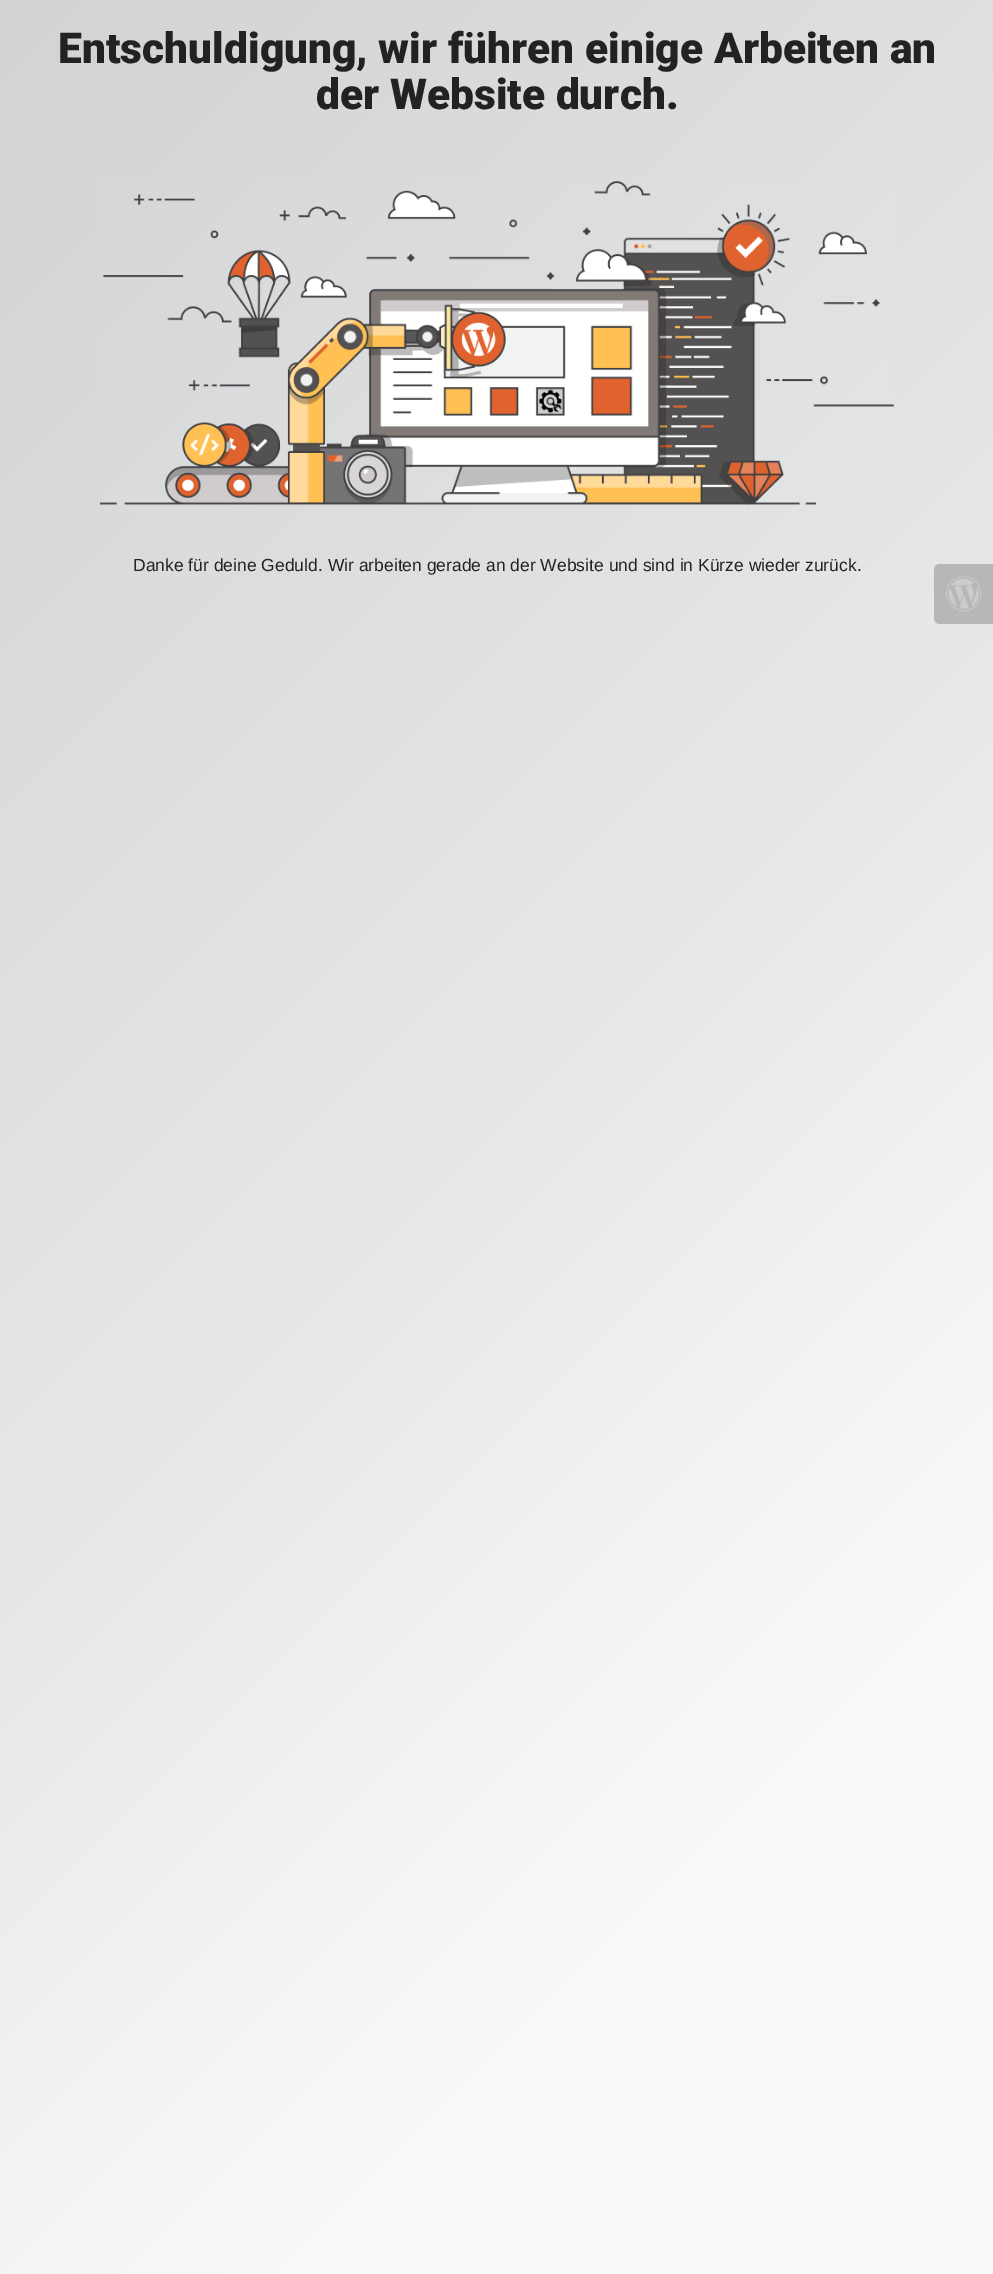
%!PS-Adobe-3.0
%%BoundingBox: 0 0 993 2274
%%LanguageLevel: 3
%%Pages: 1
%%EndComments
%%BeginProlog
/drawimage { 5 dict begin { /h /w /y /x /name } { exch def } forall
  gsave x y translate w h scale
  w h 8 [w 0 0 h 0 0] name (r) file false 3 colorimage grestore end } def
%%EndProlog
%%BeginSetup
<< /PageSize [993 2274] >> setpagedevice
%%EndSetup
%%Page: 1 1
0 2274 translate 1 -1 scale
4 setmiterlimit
1 setgray
0 0 993 2274 rectfill
gsave newpath 0 0 moveto 993 0 lineto 993 2274 lineto 0 2274 lineto closepath clip newpath
<< /ShadingType 2 /ColorSpace /DeviceRGB /Coords [-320 320 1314 1955] /Extend [true true] /Function << /FunctionType 3 /Domain [0 1] /Functions [<< /FunctionType 2 /Domain [0 1] /C0 [0.824 0.827 0.835] /C1 [0.894 0.898 0.906] /N 1 >> << /FunctionType 2 /Domain [0 1] /C0 [0.894 0.898 0.906] /C1 [0.98 0.98 0.98] /N 1 >> << /FunctionType 2 /Domain [0 1] /C0 [0.98 0.98 0.98] /C1 [0.98 0.98 0.98] /N 1 >>] /Bounds [0.44 0.8] /Encode [0 1 0 1 0 1] >> >> shfill grestore
(images/1.raw) 100 181 794 324 drawimage
0.714 0.718 0.722 setrgbcolor
newpath 940 564 moveto 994 564 lineto 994 624 lineto 940 624 lineto 936.5 624 934 621.5 934 618 curveto 934 570 lineto 934 566.5 936.5 564 940 564 curveto closepath fill
(images/2.raw) 946 576 36 36 drawimage
/Roboto-Black [42.5 0 0 -42.5 0 0] selectfont
0.133 setgray
58 63 moveto (Entschuldigung, wir führen einige Arbeiten an) show
316 109 moveto (der Website durch.) show
/LiberationSans-Regular [17.5 0 0 -17.5 0 0] selectfont
133 571 moveto (Danke für deine Geduld. Wir arbeiten gerade an der Website und sind in Kürze wieder zurück.) show
showpage
%%EOF
